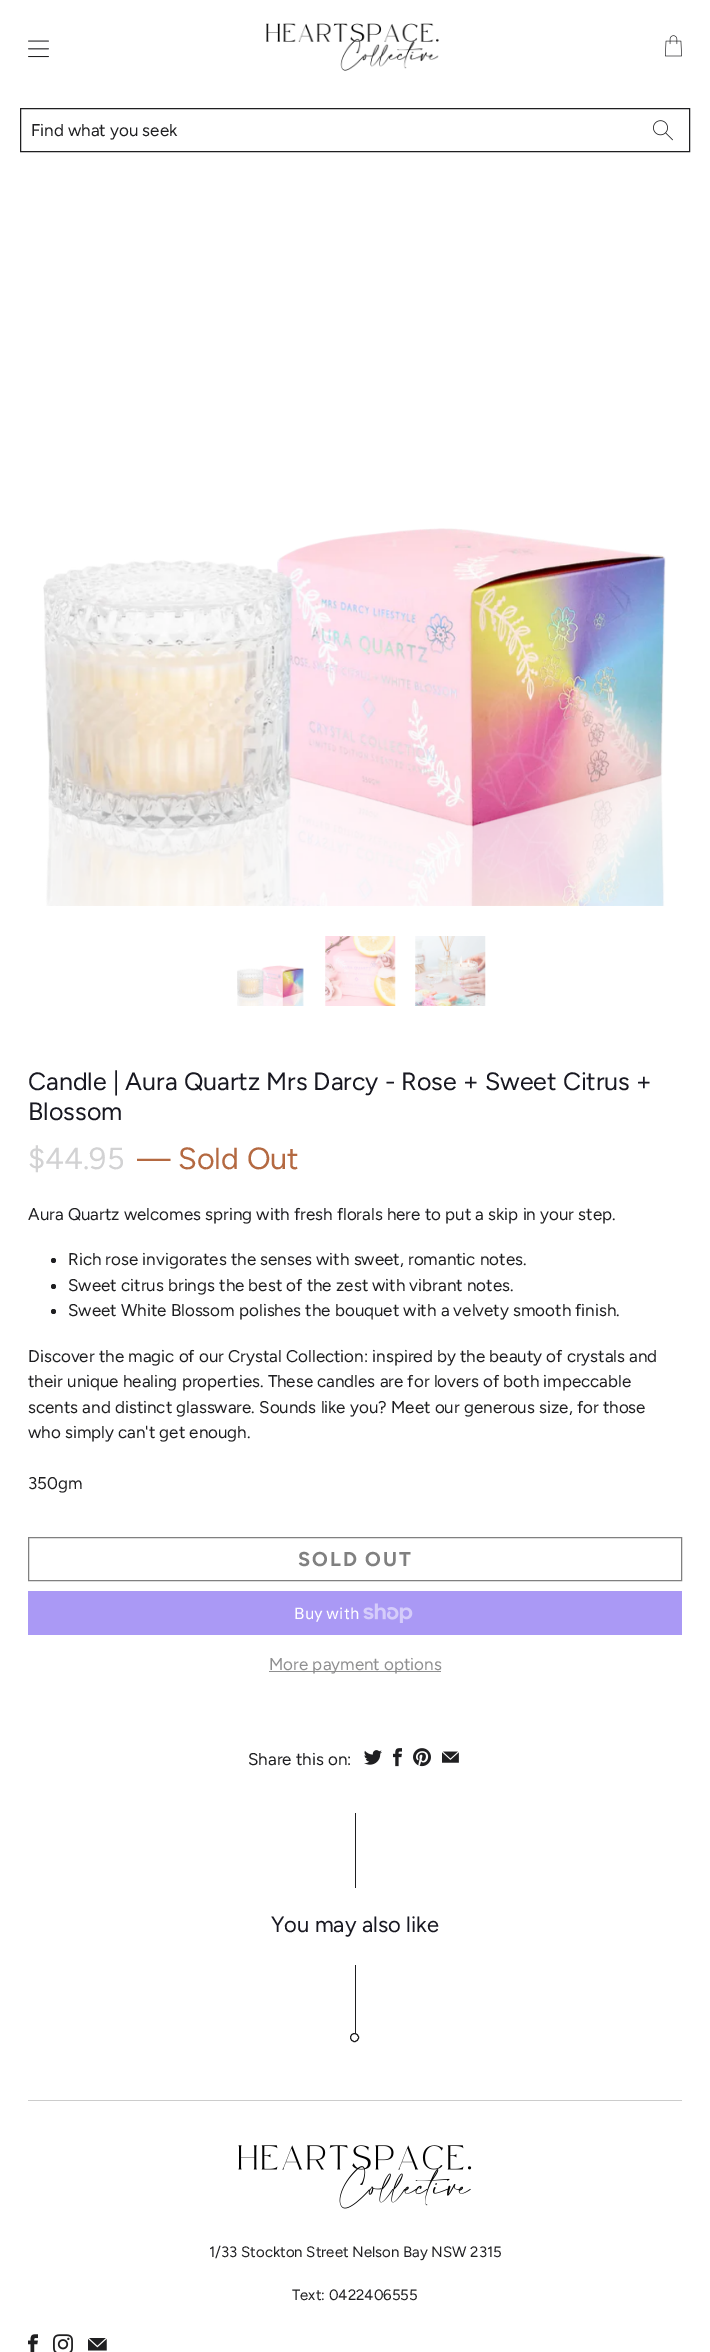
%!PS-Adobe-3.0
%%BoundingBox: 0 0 710 2352
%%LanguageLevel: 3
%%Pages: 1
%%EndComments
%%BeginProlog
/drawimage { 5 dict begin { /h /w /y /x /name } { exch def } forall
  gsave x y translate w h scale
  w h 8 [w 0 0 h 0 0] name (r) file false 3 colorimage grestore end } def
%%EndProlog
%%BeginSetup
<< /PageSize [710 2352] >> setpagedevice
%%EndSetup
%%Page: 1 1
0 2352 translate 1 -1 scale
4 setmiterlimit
1 setgray
0 0 710 2352 rectfill
(images/1.raw) 28 40 21 18 drawimage
(images/2.raw) 266 23 173 48 drawimage
(images/3.raw) 665 35 17 22 drawimage
0.122 0.122 0.129 setrgbcolor
20.5 108.5 669 43 rectstroke
(images/4.raw) 653 120 20 21 drawimage
(images/5.raw) 43 528 623 378 drawimage
(images/6.raw) 237 965 67 41 drawimage
(images/7.raw) 325 936 71 70 drawimage
(images/8.raw) 415 936 71 70 drawimage
newpath 53.5 1260.5 2.5 0 360 arc closepath fill
newpath 53.5 1286.5 2.5 0 360 arc closepath fill
newpath 53.5 1311.5 2.5 0 360 arc closepath fill
0.502 setgray
28.5 1537.5 653 43 rectstroke
0.667 0.6 0.961 setrgbcolor
28 1591 654 44 rectfill
(images/9.raw) 363 1603 50 20 drawimage
0.561 0.561 0.565 setrgbcolor
269 1671 172 1 rectfill
(images/10.raw) 364 1750 18 15 drawimage
(images/11.raw) 393 1748 9 19 drawimage
(images/12.raw) 413 1748 18 19 drawimage
(images/13.raw) 442 1751 17 12 drawimage
0.122 0.122 0.129 setrgbcolor
355 1813 1 75 rectfill
355 1965 1 68 rectfill
newpath 354.5 2037.5 4 0 360 arc closepath stroke
0.8 setgray
28 2100 654 1 rectfill
(images/14.raw) 238 2145 234 64 drawimage
(images/15.raw) 28 2334 10 18 drawimage
(images/16.raw) 53 2334 20 18 drawimage
(images/17.raw) 88 2338 19 13 drawimage
/Figtree-Regular [17 0 0 -17 0 0] selectfont
0.122 0.122 0.129 setrgbcolor
31 136 moveto (Find what you seek) show
/Figtree-Regular [25 0 0 -25 0 0] selectfont
0.094 0.094 0.129 setrgbcolor
28 1090 moveto (Candle | Aura Quartz Mrs Darcy - Rose + Sweet Citrus +) show
28 1120 moveto (Blossom) show
/Figtree-Regular [30.5 0 0 -30.5 0 0] selectfont
0.824 0.824 0.827 setrgbcolor
28 1169 moveto ($44.95) show
0.706 0.412 0.255 setrgbcolor
137 1169 moveto (— Sold Out) show
/Figtree-Regular [17 0 0 -17 0 0] selectfont
0.122 0.122 0.129 setrgbcolor
28 1220 moveto (Aura Quartz welcomes spring with fresh florals here to put a skip in your step.) show
68 1265 moveto (Rich rose invigorates the senses with sweet, romantic notes.) show
68 1291 moveto (Sweet citrus brings the best of the zest with vibrant notes.) show
68 1316 moveto (Sweet White Blossom polishes the bouquet with a velvety smooth finish.) show
28 1362 moveto (Discover the magic of our Crystal Collection: inspired by the beauty of crystals and) show
28 1387 moveto (their unique healing properties. These candles are for lovers of both impeccable) show
28 1413 moveto (scents and distinct glassware. Sounds like you? Meet our generous size, for those) show
28 1438 moveto (who simply can't get enough.) show
28 1489 moveto (350gm) show
/Figtree-Bold [20 0 0 -20 0 0] selectfont
0.502 setgray
298 1566 moveto 2 0 (SOLD OUT) ashow
/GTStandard-Regular [16 0 0 -16 0 0] selectfont
1 setgray
294 1619 moveto (Buy with) show
/Figtree-Regular [17 0 0 -17 0 0] selectfont
0.561 0.561 0.565 setrgbcolor
269 1670 moveto (More payment options) show
0.122 0.122 0.129 setrgbcolor
248 1765 moveto (Share this on:) show
/Figtree-Regular [22 0 0 -22 0 0] selectfont
0.094 0.094 0.129 setrgbcolor
271 1932 moveto (You may also like) show
/Figtree-Regular [15 0 0 -15 0 0] selectfont
0.122 0.122 0.129 setrgbcolor
209 2257 moveto (1/33 Stockton Street Nelson Bay NSW 2315) show
292 2300 moveto (Text: 0422406555) show
showpage
%%EOF
